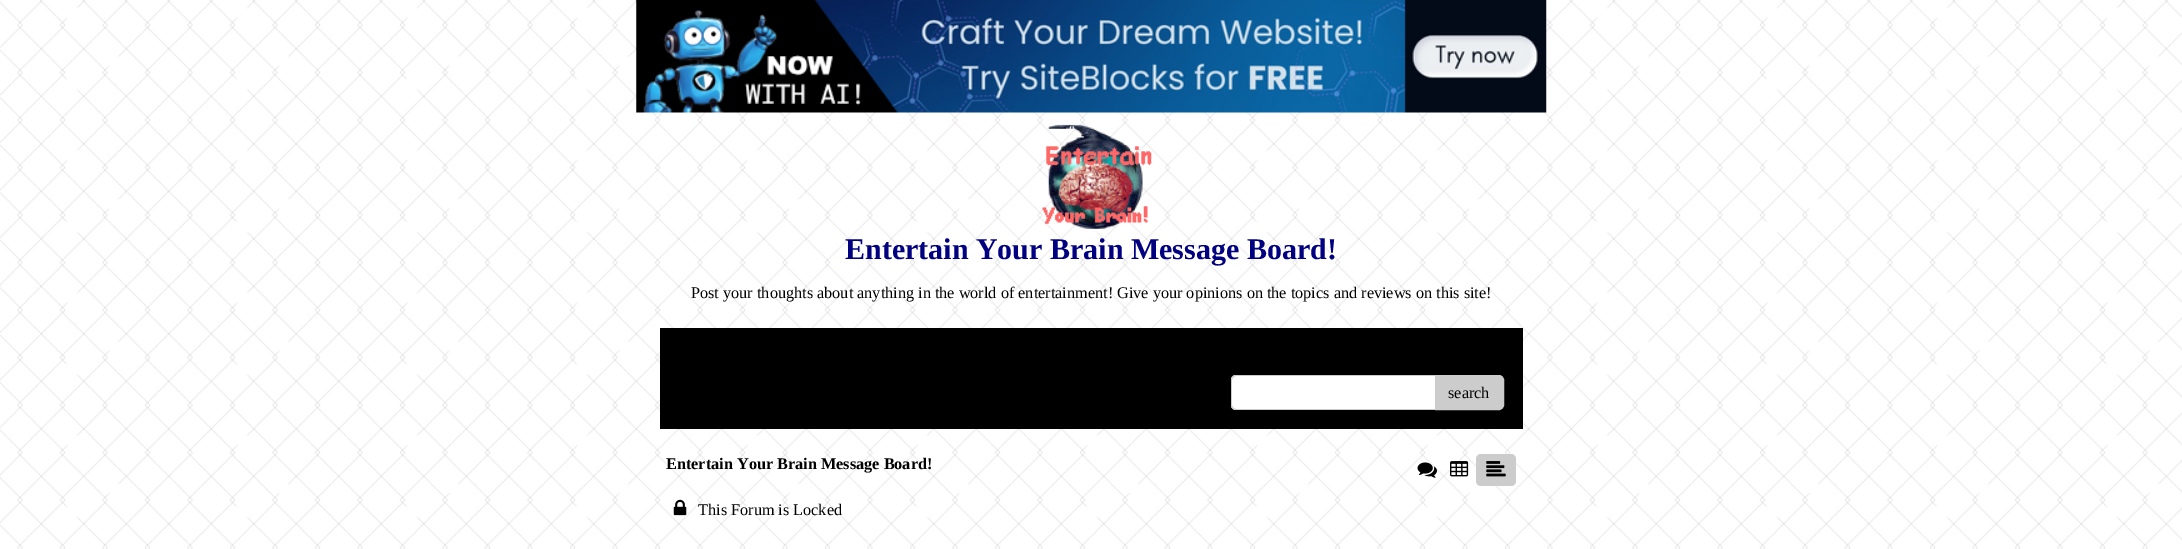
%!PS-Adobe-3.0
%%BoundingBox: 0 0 2182 549
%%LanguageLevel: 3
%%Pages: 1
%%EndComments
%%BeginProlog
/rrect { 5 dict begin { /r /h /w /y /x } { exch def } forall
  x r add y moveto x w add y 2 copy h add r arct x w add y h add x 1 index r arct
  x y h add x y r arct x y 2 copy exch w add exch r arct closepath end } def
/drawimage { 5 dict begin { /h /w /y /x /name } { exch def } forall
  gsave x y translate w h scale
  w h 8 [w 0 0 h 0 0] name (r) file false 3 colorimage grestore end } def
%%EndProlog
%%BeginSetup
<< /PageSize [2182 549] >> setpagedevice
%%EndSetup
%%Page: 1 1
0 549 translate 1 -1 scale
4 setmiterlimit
1 setgray
0 0 2182 549 rectfill
(images/1.raw) 0 0 2182 549 drawimage
(images/2.raw) 636 0 911 113 drawimage
(images/3.raw) 1042 124 110 105 drawimage
0 setgray
660 328 863 101 rectfill
1 setgray
1231 375 260 35 5 rrect fill
0.8 setgray
newpath 1236 375 moveto 1486 375 lineto 1489 375 1491 377 1491 380 curveto 1491 405 lineto 1491 408 1489 410 1486 410 curveto 1236 410 lineto 1233 410 1231 408 1231 405 curveto 1231 380 lineto 1231 377 1233 375 1236 375 curveto closepath 1236 376 moveto 1486 376 lineto 1489 376 1491 378 1491 380 curveto 1491 405 lineto 1491 407 1489 409 1486 409 curveto 1236 409 lineto 1234 409 1232 407 1232 405 curveto 1232 380 lineto 1232 378 1234 376 1236 376 curveto closepath eofill
newpath 1435.5 375.5 moveto 1499 375.5 lineto 1501.5 375.5 1503.5 377.5 1503.5 380 curveto 1503.5 405 lineto 1503.5 407.5 1501.5 409.5 1499 409.5 curveto 1435.5 409.5 lineto closepath gsave fill grestore
stroke
(images/4.raw) 1417 462 20 16 drawimage
(images/5.raw) 1450 461 19 16 drawimage
1476 454 40 32 5 rrect fill
(images/6.raw) 1486 461 20 16 drawimage
(images/7.raw) 673 499 14 17 drawimage
/LiberationSerif-Bold [30 0 0 -30 0 0] selectfont
0 0 0.502 setrgbcolor
845 259 moveto (Entertain Your Brain Message Board!) show
/LiberationSerif-Regular [16.25 0 0 -16.25 0 0] selectfont
0 setgray
691 298 moveto (Post your thoughts about anything in the world of entertainment! Give your opinions on the topics and reviews on this site!) show
1448 398 moveto (search) show
/LiberationSerif-Bold [16.25 0 0 -16.25 0 0] selectfont
666 469 moveto (Entertain Your Brain Message Board!) show
/LiberationSerif-Regular [16.25 0 0 -16.25 0 0] selectfont
698 515 moveto (This Forum is Locked) show
showpage
%%EOF
